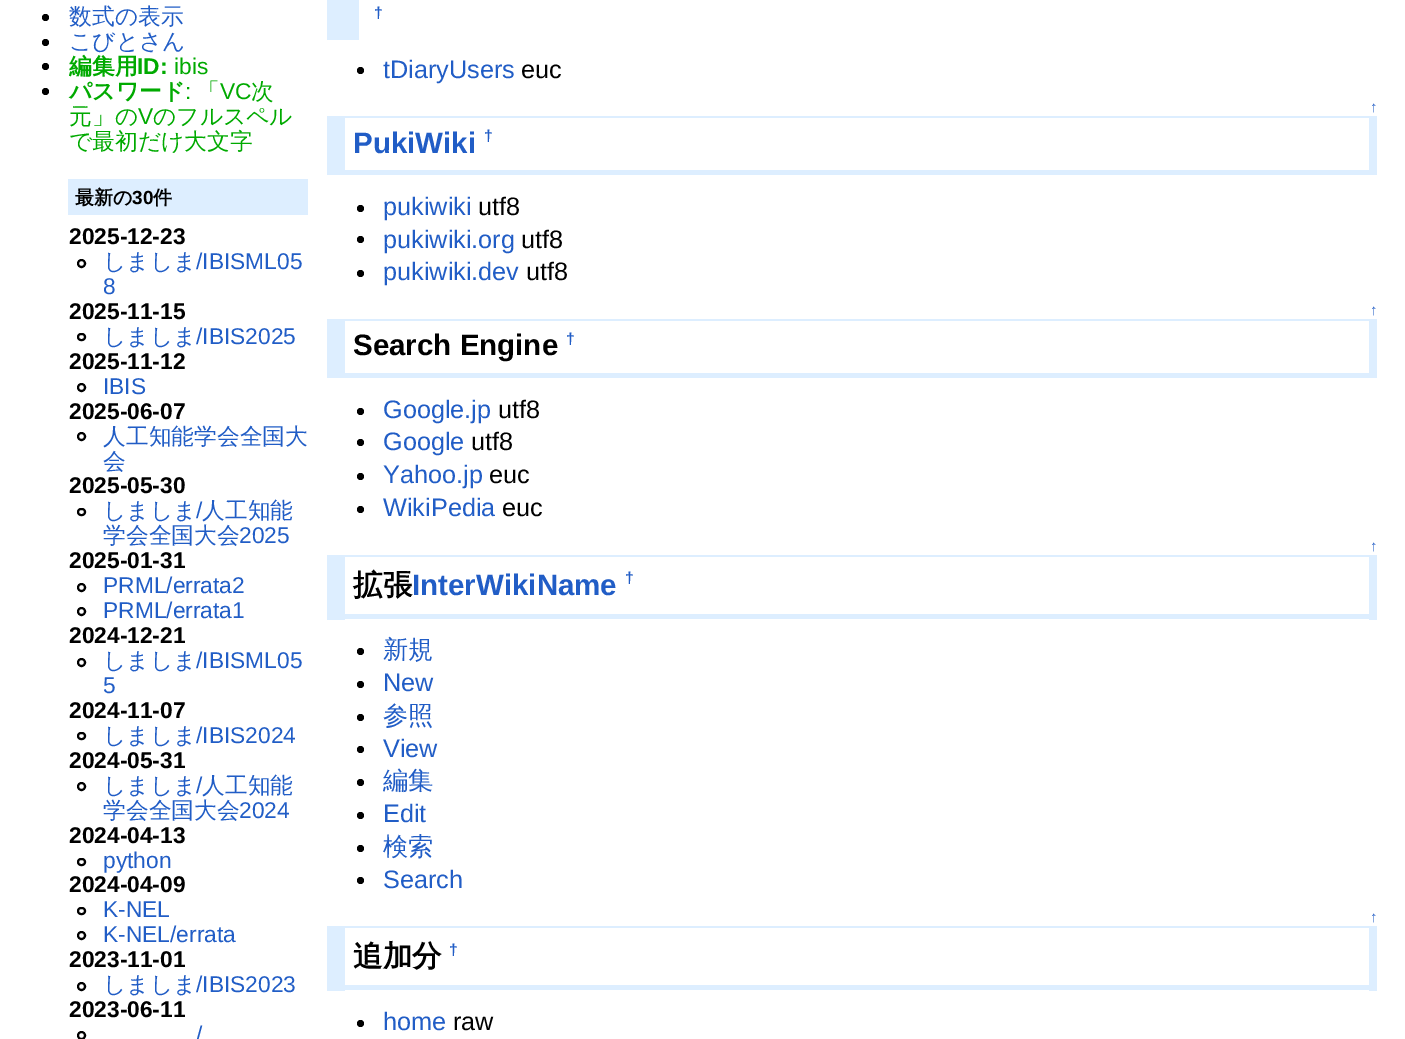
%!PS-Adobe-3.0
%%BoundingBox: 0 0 1405 1039
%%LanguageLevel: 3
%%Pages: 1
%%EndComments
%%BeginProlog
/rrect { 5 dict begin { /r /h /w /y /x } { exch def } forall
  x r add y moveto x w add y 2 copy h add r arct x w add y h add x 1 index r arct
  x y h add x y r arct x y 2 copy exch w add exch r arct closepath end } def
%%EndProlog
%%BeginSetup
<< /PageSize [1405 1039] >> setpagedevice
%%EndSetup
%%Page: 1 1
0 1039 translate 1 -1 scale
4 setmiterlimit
1 setgray
0 0 1405 1039 rectfill
0 setgray
newpath 45.5 17.5 3.5 0 360 arc closepath fill
newpath 45.5 42.5 3.5 0 360 arc closepath fill
newpath 45.5 66.5 3.5 0 360 arc closepath fill
newpath 45.5 91.5 3.5 0 360 arc closepath fill
0.867 0.933 1 setrgbcolor
68 179 240 36 rectfill
0 setgray
2 setlinewidth
newpath 81.5 263.5 3.5 0 360 arc closepath stroke
78 334 7 6 3 rrect stroke
newpath 81.5 387.5 3.5 0 360 arc closepath stroke
newpath 81.5 436.5 3.5 0 360 arc closepath stroke
78 509 7 6 3 rrect stroke
newpath 81.5 587.5 3.5 0 360 arc closepath stroke
newpath 81.5 611.5 3.5 0 360 arc closepath stroke
newpath 81.5 662.5 3.5 0 360 arc closepath stroke
78 733 7 6 3 rrect stroke
newpath 81.5 786.5 3.5 0 360 arc closepath stroke
78 859 7 6 3 rrect stroke
78 908 7 6 3 rrect stroke
newpath 81.5 935.5 3.5 0 360 arc closepath stroke
newpath 81.5 986.5 3.5 0 360 arc closepath stroke
newpath 81.5 1035.5 3.5 0 360 arc closepath stroke
0.867 0.933 1 setrgbcolor
327 0 32 40 rectfill
0 setgray
newpath 360.5 70.5 3.5 0 360 arc closepath fill
0.867 0.933 1 setrgbcolor
345 116 1032 2 rectfill
1369 116 8 59 rectfill
345 170 1032 5 rectfill
327 116 18 59 rectfill
0 setgray
newpath 360.5 208.5 3.5 0 360 arc closepath fill
newpath 360.5 239.5 3.5 0 360 arc closepath fill
newpath 360.5 273.5 3.5 0 360 arc closepath fill
0.867 0.933 1 setrgbcolor
345 319 1032 2 rectfill
1369 319 8 59 rectfill
345 373 1032 5 rectfill
327 319 18 59 rectfill
0 setgray
newpath 360.5 411.5 3.5 0 360 arc closepath fill
newpath 360.5 442.5 3.5 0 360 arc closepath fill
newpath 360.5 476.5 3.5 0 360 arc closepath fill
newpath 360.5 509.5 3.5 0 360 arc closepath fill
0.867 0.933 1 setrgbcolor
345 555 1032 2 rectfill
1369 555 8 65 rectfill
345 614 1032 5 rectfill
327 555 18 65 rectfill
0 setgray
newpath 360.5 651.5 3.5 0 360 arc closepath fill
newpath 360.5 684.5 3.5 0 360 arc closepath fill
newpath 360.5 717.5 3.5 0 360 arc closepath fill
newpath 360.5 749.5 3.5 0 360 arc closepath fill
newpath 360.5 782.5 3.5 0 360 arc closepath fill
newpath 360.5 815.5 3.5 0 360 arc closepath fill
newpath 360.5 848.5 3.5 0 360 arc closepath fill
newpath 360.5 880.5 3.5 0 360 arc closepath fill
0.867 0.933 1 setrgbcolor
345 926 1032 2 rectfill
1369 926 8 65 rectfill
345 985 1032 5 rectfill
327 926 18 65 rectfill
0 setgray
newpath 360.5 1023.5 3.5 0 360 arc closepath fill
/WenQuanYiZenHei-Medium [22.75 0 0 -22.75 0 0] selectfont
0.129 0.365 0.776 setrgbcolor
69 24 moveto (数式の表示) show
69 49 moveto (こびとさん) show
/WenQuanYiZenHei-Bold [22.75 0 0 -22.75 0 0] selectfont
0 0.667 0 setrgbcolor
69 74 moveto (編集用) show
/LiberationSans-Bold [22.75 0 0 -22.75 0 0] selectfont
137 74 moveto (ID:) show
/LiberationSans-Regular [22.75 0 0 -22.75 0 0] selectfont
174 74 moveto (ibis) show
/WenQuanYiZenHei-Bold [22.75 0 0 -22.75 0 0] selectfont
69 99 moveto (パスワード) show
/LiberationSans-Regular [22.75 0 0 -22.75 0 0] selectfont
185 99 moveto (:) show
/WenQuanYiZenHei-Medium [22.75 0 0 -22.75 0 0] selectfont
197 99 moveto (「) show
/LiberationSans-Regular [22.75 0 0 -22.75 0 0] selectfont
220 99 moveto (VC) show
/WenQuanYiZenHei-Medium [22.75 0 0 -22.75 0 0] selectfont
251 99 moveto (次) show
69 124 moveto (元」の) show
/LiberationSans-Regular [22.75 0 0 -22.75 0 0] selectfont
138 124 moveto (V) show
/WenQuanYiZenHei-Medium [22.75 0 0 -22.75 0 0] selectfont
153 124 moveto (のフルスペル) show
69 149 moveto (で最初だけ大文字) show
/WenQuanYiZenHei-Bold [19 0 0 -19 0 0] selectfont
0 setgray
75 204 moveto (最新の) show
/LiberationSans-Bold [19 0 0 -19 0 0] selectfont
132 204 moveto (30) show
/WenQuanYiZenHei-Bold [19 0 0 -19 0 0] selectfont
153 204 moveto (件) show
/LiberationSans-Bold [22.75 0 0 -22.75 0 0] selectfont
69 244 moveto (2025-12-23) show
/WenQuanYiZenHei-Medium [22.75 0 0 -22.75 0 0] selectfont
0.129 0.365 0.776 setrgbcolor
103 269 moveto (しましま) show
/LiberationSans-Regular [22.75 0 0 -22.75 0 0] selectfont
196 269 moveto (/IBISML05) show
103 294 moveto (8) show
/LiberationSans-Bold [22.75 0 0 -22.75 0 0] selectfont
0 setgray
69 319 moveto (2025-11-15) show
/WenQuanYiZenHei-Medium [22.75 0 0 -22.75 0 0] selectfont
0.129 0.365 0.776 setrgbcolor
103 344 moveto (しましま) show
/LiberationSans-Regular [22.75 0 0 -22.75 0 0] selectfont
196 344 moveto (/IBIS2025) show
/LiberationSans-Bold [22.75 0 0 -22.75 0 0] selectfont
0 setgray
69 369 moveto (2025-11-12) show
/LiberationSans-Regular [22.75 0 0 -22.75 0 0] selectfont
0.129 0.365 0.776 setrgbcolor
103 394 moveto (IBIS) show
/LiberationSans-Bold [22.75 0 0 -22.75 0 0] selectfont
0 setgray
69 419 moveto (2025-06-07) show
/WenQuanYiZenHei-Medium [22.75 0 0 -22.75 0 0] selectfont
0.129 0.365 0.776 setrgbcolor
103 444 moveto (人工知能学会全国大) show
103 469 moveto (会) show
/LiberationSans-Bold [22.75 0 0 -22.75 0 0] selectfont
0 setgray
69 493 moveto (2025-05-30) show
/WenQuanYiZenHei-Medium [22.75 0 0 -22.75 0 0] selectfont
0.129 0.365 0.776 setrgbcolor
103 518 moveto (しましま) show
/LiberationSans-Regular [22.75 0 0 -22.75 0 0] selectfont
196 518 moveto (/) show
/WenQuanYiZenHei-Medium [22.75 0 0 -22.75 0 0] selectfont
202 518 moveto (人工知能) show
103 543 moveto (学会全国大会) show
/LiberationSans-Regular [22.75 0 0 -22.75 0 0] selectfont
239 543 moveto (2025) show
/LiberationSans-Bold [22.75 0 0 -22.75 0 0] selectfont
0 setgray
69 568 moveto (2025-01-31) show
/LiberationSans-Regular [22.75 0 0 -22.75 0 0] selectfont
0.129 0.365 0.776 setrgbcolor
103 593 moveto (PRML/errata2) show
103 618 moveto (PRML/errata1) show
/LiberationSans-Bold [22.75 0 0 -22.75 0 0] selectfont
0 setgray
69 643 moveto (2024-12-21) show
/WenQuanYiZenHei-Medium [22.75 0 0 -22.75 0 0] selectfont
0.129 0.365 0.776 setrgbcolor
103 668 moveto (しましま) show
/LiberationSans-Regular [22.75 0 0 -22.75 0 0] selectfont
196 668 moveto (/IBISML05) show
103 693 moveto (5) show
/LiberationSans-Bold [22.75 0 0 -22.75 0 0] selectfont
0 setgray
69 718 moveto (2024-11-07) show
/WenQuanYiZenHei-Medium [22.75 0 0 -22.75 0 0] selectfont
0.129 0.365 0.776 setrgbcolor
103 743 moveto (しましま) show
/LiberationSans-Regular [22.75 0 0 -22.75 0 0] selectfont
196 743 moveto (/IBIS2024) show
/LiberationSans-Bold [22.75 0 0 -22.75 0 0] selectfont
0 setgray
69 768 moveto (2024-05-31) show
/WenQuanYiZenHei-Medium [22.75 0 0 -22.75 0 0] selectfont
0.129 0.365 0.776 setrgbcolor
103 793 moveto (しましま) show
/LiberationSans-Regular [22.75 0 0 -22.75 0 0] selectfont
196 793 moveto (/) show
/WenQuanYiZenHei-Medium [22.75 0 0 -22.75 0 0] selectfont
202 793 moveto (人工知能) show
103 818 moveto (学会全国大会) show
/LiberationSans-Regular [22.75 0 0 -22.75 0 0] selectfont
239 818 moveto (2024) show
/LiberationSans-Bold [22.75 0 0 -22.75 0 0] selectfont
0 setgray
69 843 moveto (2024-04-13) show
/LiberationSans-Regular [22.75 0 0 -22.75 0 0] selectfont
0.129 0.365 0.776 setrgbcolor
103 868 moveto (python) show
/LiberationSans-Bold [22.75 0 0 -22.75 0 0] selectfont
0 setgray
69 892 moveto (2024-04-09) show
/LiberationSans-Regular [22.75 0 0 -22.75 0 0] selectfont
0.129 0.365 0.776 setrgbcolor
103 917 moveto (K-NEL) show
103 942 moveto (K-NEL/errata) show
/LiberationSans-Bold [22.75 0 0 -22.75 0 0] selectfont
0 setgray
69 967 moveto (2023-11-01) show
/WenQuanYiZenHei-Medium [22.75 0 0 -22.75 0 0] selectfont
0.129 0.365 0.776 setrgbcolor
103 992 moveto (しましま) show
/LiberationSans-Regular [22.75 0 0 -22.75 0 0] selectfont
196 992 moveto (/IBIS2023) show
/LiberationSans-Bold [22.75 0 0 -22.75 0 0] selectfont
0 setgray
69 1017 moveto (2023-06-11) show
/LiberationSans-Regular [22.75 0 0 -22.75 0 0] selectfont
0.129 0.365 0.776 setrgbcolor
196 1042 moveto (/) show
/LiberationSans-Bold [16 0 0 -16 0 0] selectfont
374 18 moveto (†) show
/LiberationSans-Regular [25.25 0 0 -25.25 0 0] selectfont
383 78 moveto (tDiaryUsers) show
0 setgray
521 78 moveto (euc) show
/LiberationSans-Regular [15 0 0 -15 0 0] selectfont
0.129 0.365 0.776 setrgbcolor
1370 112 moveto (↑) show
/LiberationSans-Bold [29.5 0 0 -29.5 0 0] selectfont
353 153 moveto (PukiWiki) show
/LiberationSans-Bold [16 0 0 -16 0 0] selectfont
484 141 moveto (†) show
/LiberationSans-Regular [25.25 0 0 -25.25 0 0] selectfont
383 215 moveto (pukiwiki) show
0 setgray
478 215 moveto (utf8) show
0.129 0.365 0.776 setrgbcolor
383 248 moveto (pukiwiki.org) show
0 setgray
521 248 moveto (utf8) show
0.129 0.365 0.776 setrgbcolor
383 280 moveto (pukiwiki.dev) show
0 setgray
526 280 moveto (utf8) show
/LiberationSans-Regular [15 0 0 -15 0 0] selectfont
0.129 0.365 0.776 setrgbcolor
1370 315 moveto (↑) show
/LiberationSans-Bold [29.5 0 0 -29.5 0 0] selectfont
0 setgray
353 355 moveto (Search Engine) show
/LiberationSans-Bold [16 0 0 -16 0 0] selectfont
0.129 0.365 0.776 setrgbcolor
566 344 moveto (†) show
/LiberationSans-Regular [25.25 0 0 -25.25 0 0] selectfont
383 418 moveto (Google.jp) show
0 setgray
498 418 moveto (utf8) show
0.129 0.365 0.776 setrgbcolor
383 450 moveto (Google) show
0 setgray
471 450 moveto (utf8) show
0.129 0.365 0.776 setrgbcolor
383 483 moveto (Yahoo.jp) show
0 setgray
489 483 moveto (euc) show
0.129 0.365 0.776 setrgbcolor
383 516 moveto (WikiPedia) show
0 setgray
502 516 moveto (euc) show
/LiberationSans-Regular [15 0 0 -15 0 0] selectfont
0.129 0.365 0.776 setrgbcolor
1370 551 moveto (↑) show
/WenQuanYiZenHei-Bold [29.5 0 0 -29.5 0 0] selectfont
0 setgray
353 595 moveto (拡張) show
/LiberationSans-Bold [29.5 0 0 -29.5 0 0] selectfont
0.129 0.365 0.776 setrgbcolor
412 595 moveto (InterWikiName) show
/LiberationSans-Bold [16 0 0 -16 0 0] selectfont
625 583 moveto (†) show
/WenQuanYiZenHei-Medium [25.25 0 0 -25.25 0 0] selectfont
383 658 moveto (新規) show
/LiberationSans-Regular [25.25 0 0 -25.25 0 0] selectfont
383 691 moveto (New) show
/WenQuanYiZenHei-Medium [25.25 0 0 -25.25 0 0] selectfont
383 724 moveto (参照) show
/LiberationSans-Regular [25.25 0 0 -25.25 0 0] selectfont
383 757 moveto (View) show
/WenQuanYiZenHei-Medium [25.25 0 0 -25.25 0 0] selectfont
383 789 moveto (編集) show
/LiberationSans-Regular [25.25 0 0 -25.25 0 0] selectfont
383 822 moveto (Edit) show
/WenQuanYiZenHei-Medium [25.25 0 0 -25.25 0 0] selectfont
383 855 moveto (検索) show
/LiberationSans-Regular [25.25 0 0 -25.25 0 0] selectfont
383 888 moveto (Search) show
/LiberationSans-Regular [15 0 0 -15 0 0] selectfont
1370 922 moveto (↑) show
/WenQuanYiZenHei-Bold [29.5 0 0 -29.5 0 0] selectfont
0 setgray
353 966 moveto (追加分) show
/LiberationSans-Bold [16 0 0 -16 0 0] selectfont
0.129 0.365 0.776 setrgbcolor
449 955 moveto (†) show
/LiberationSans-Regular [25.25 0 0 -25.25 0 0] selectfont
383 1030 moveto (home) show
0 setgray
453 1030 moveto (raw) show
showpage
%%EOF
